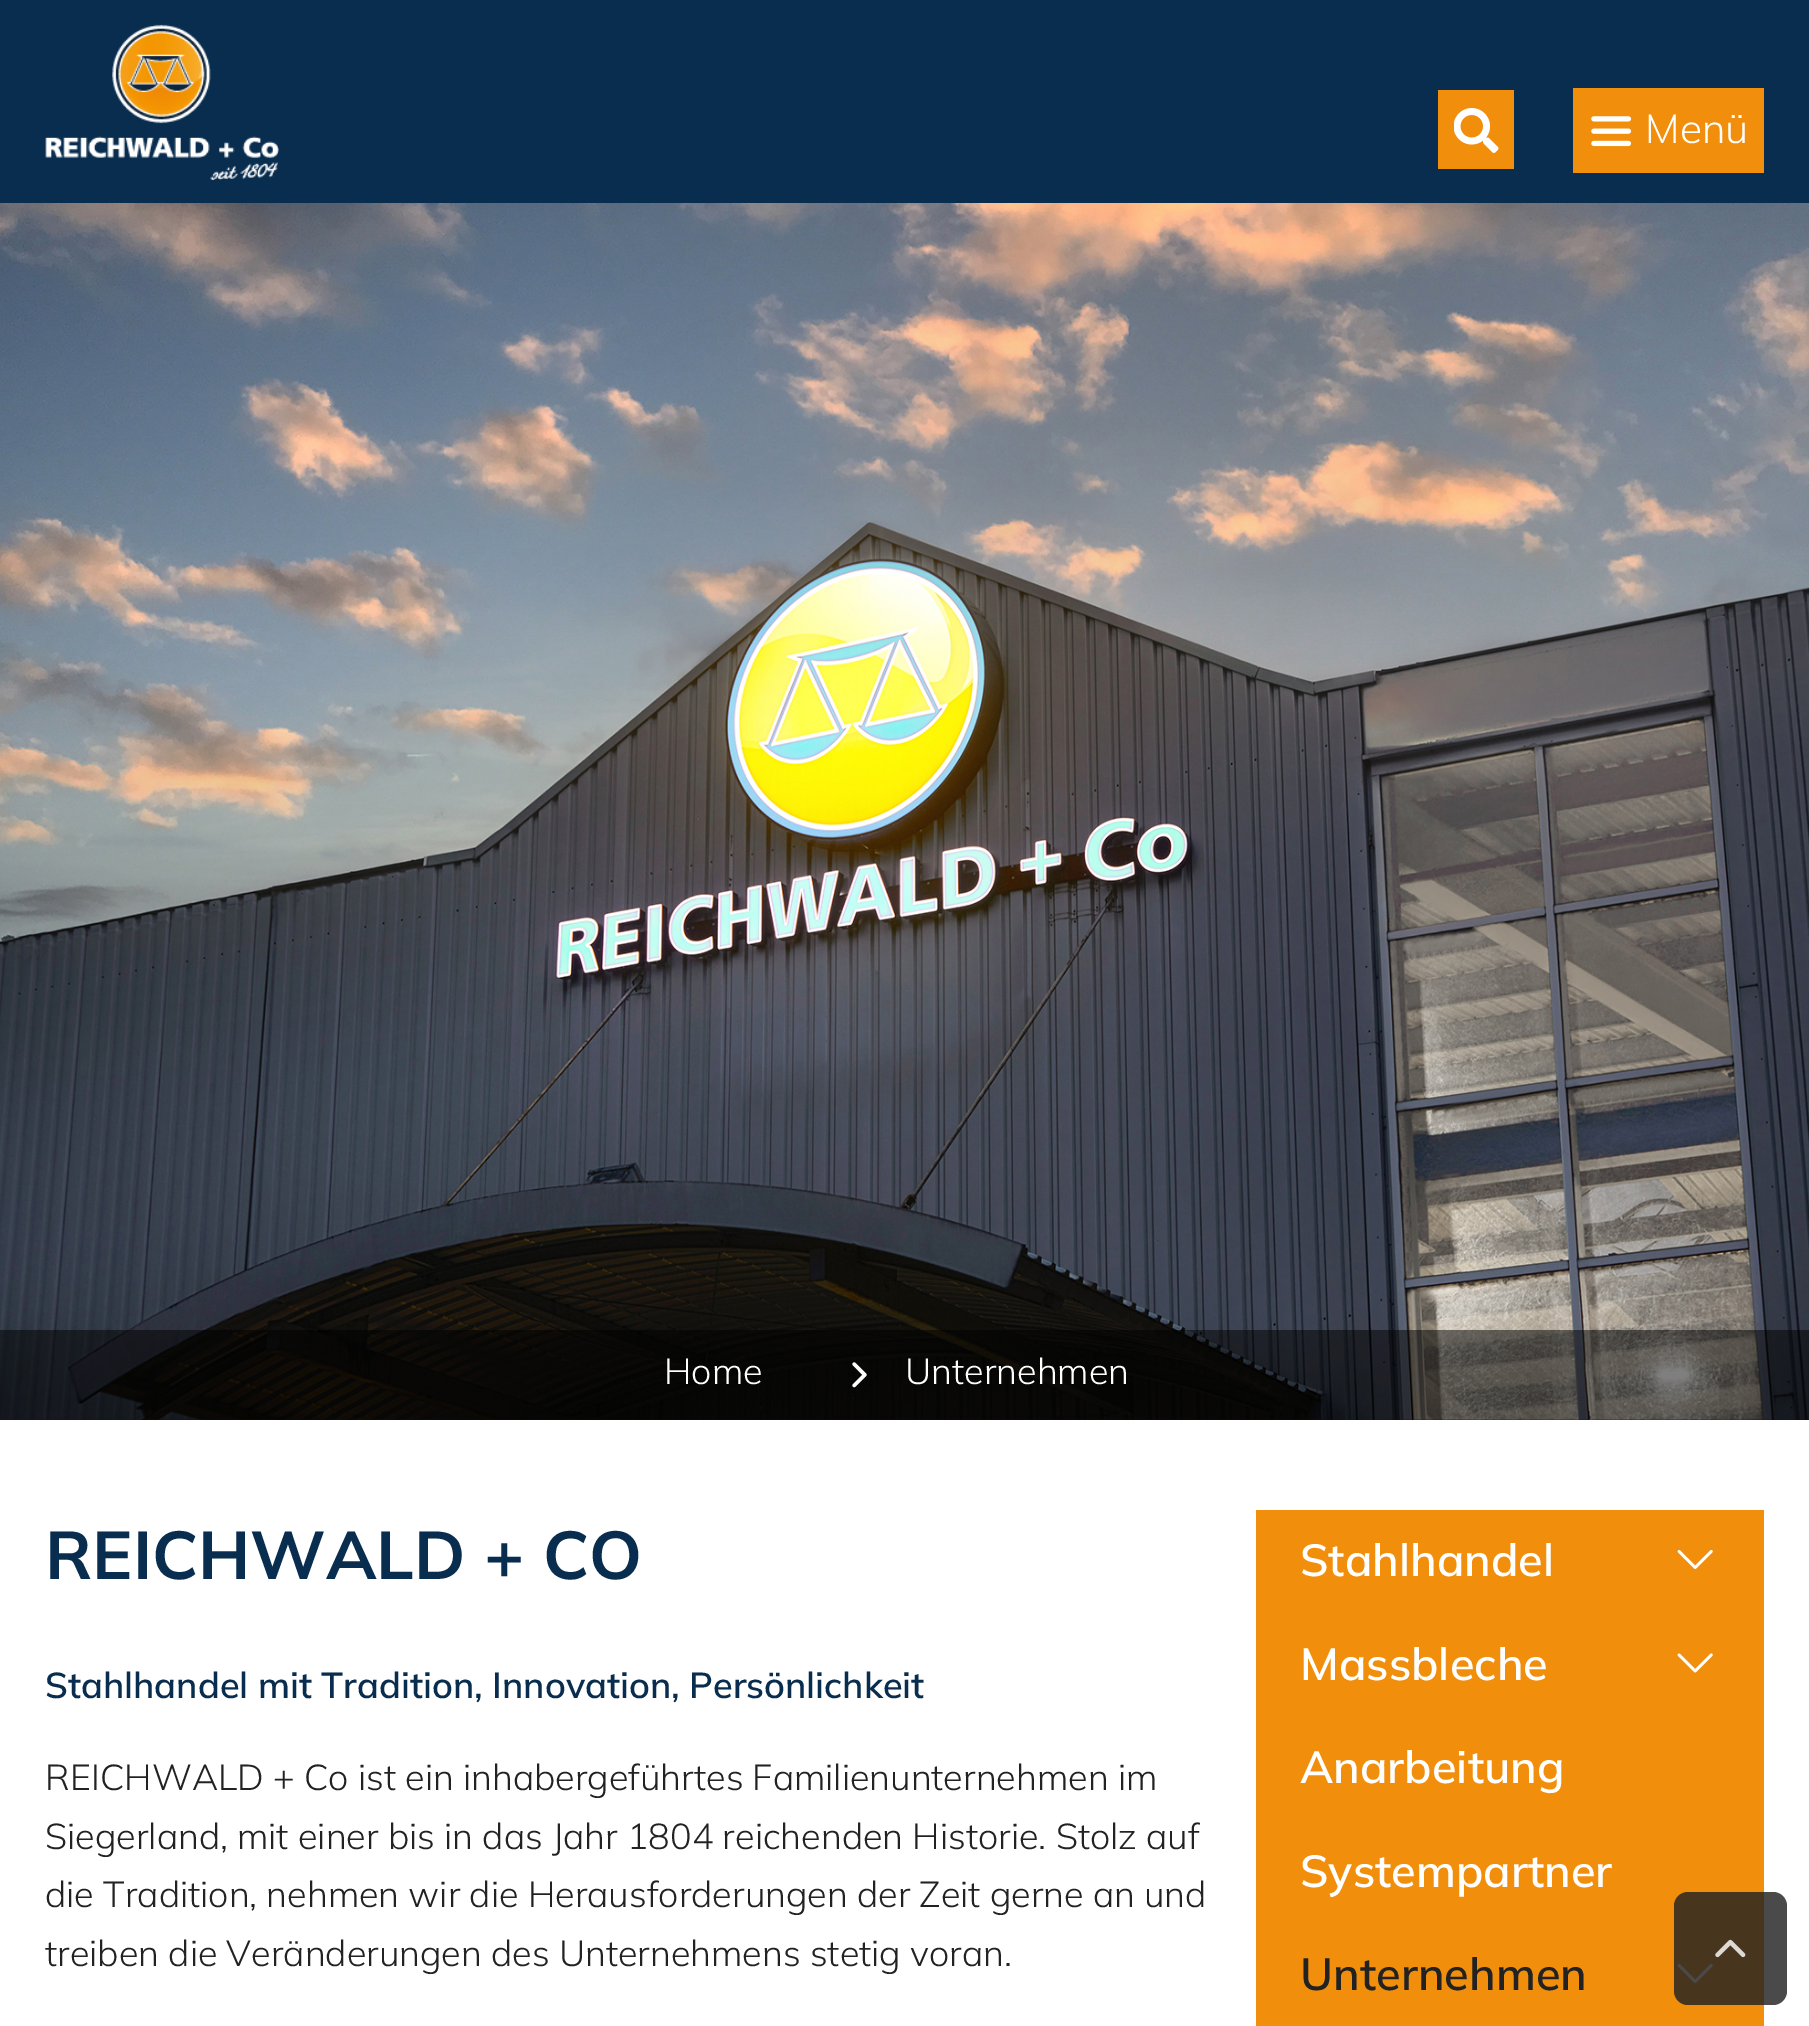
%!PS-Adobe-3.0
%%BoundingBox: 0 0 1809 2026
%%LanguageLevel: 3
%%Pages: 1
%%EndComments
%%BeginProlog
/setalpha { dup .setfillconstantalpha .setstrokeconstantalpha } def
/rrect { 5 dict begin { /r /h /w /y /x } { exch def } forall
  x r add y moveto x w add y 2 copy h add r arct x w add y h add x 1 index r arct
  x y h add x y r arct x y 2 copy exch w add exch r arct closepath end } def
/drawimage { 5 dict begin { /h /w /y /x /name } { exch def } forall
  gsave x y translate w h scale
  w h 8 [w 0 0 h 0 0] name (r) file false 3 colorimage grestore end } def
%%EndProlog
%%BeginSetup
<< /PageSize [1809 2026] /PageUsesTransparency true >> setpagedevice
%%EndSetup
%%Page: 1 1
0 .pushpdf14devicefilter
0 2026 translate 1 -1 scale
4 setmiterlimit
1 setgray
0 0 1809 2026 rectfill
0.035 0.176 0.31 setrgbcolor
0 0 1809 203 rectfill
(images/1.raw) 45 24 234 156 drawimage
0.945 0.557 0.043 setrgbcolor
1438 90 76 79 rectfill
(images/2.raw) 1454 108 45 45 drawimage
1573 88 191 85 rectfill
(images/3.raw) 1591 116 41 31 drawimage
(images/4.raw) 0 203 1809 1217 drawimage
0.5 setalpha
0 setgray
0 1330 1809 90 rectfill
1 setalpha
(images/5.raw) 852 1362 15 26 drawimage
0.945 0.557 0.043 setrgbcolor
1256 1510 508 103 rectfill
(images/6.raw) 1677 1549 36 20 drawimage
1256 1613 508 207 rectfill
(images/7.raw) 1677 1653 36 20 drawimage
1256 1820 508 206 rectfill
(images/6.raw) 1677 1963 36 20 drawimage
0.82 setalpha
0.133 setgray
1674 1892 113 113 14 rrect fill
1 setalpha
(images/8.raw) 1715 1939 31 19 drawimage
/Mulish-Light [40.5 0 0 -40.5 0 0] selectfont
1 setgray
1645 143 moveto (Menü) show
/Mulish-Light [36 0 0 -36 0 0] selectfont
664 1384 moveto (Home) show
905 1384 moveto (Unternehmen) show
/Mulish-Bold [67.5 0 0 -67.5 0 0] selectfont
0.035 0.176 0.31 setrgbcolor
45 1579 moveto (REICHWALD + CO) show
/Mulish-SemiBold [36 0 0 -36 0 0] selectfont
45 1698 moveto (Stahlhandel mit Tradition, Innovation, Persönlichkeit) show
/Mulish-Light [36 0 0 -36 0 0] selectfont
0.133 setgray
45 1790 moveto (REICHWALD + Co ist ein inhabergeführtes Familienunternehmen im) show
45 1849 moveto (Siegerland, mit einer bis in das Jahr 1804 reichenden Historie. Stolz auf) show
45 1907 moveto (die Tradition, nehmen wir die Herausforderungen der Zeit gerne an und) show
45 1966 moveto (treiben die Veränderungen des Unternehmens stetig voran.) show
/Mulish-SemiBold [45 0 0 -45 0 0] selectfont
1 setgray
1300 1576 moveto (Stahlhandel) show
1300 1680 moveto (Massbleche) show
1300 1783 moveto (Anarbeitung) show
1300 1887 moveto (Systempartner) show
0.133 setgray
1300 1990 moveto (Unternehmen) show
.poppdf14devicefilter showpage
%%EOF
